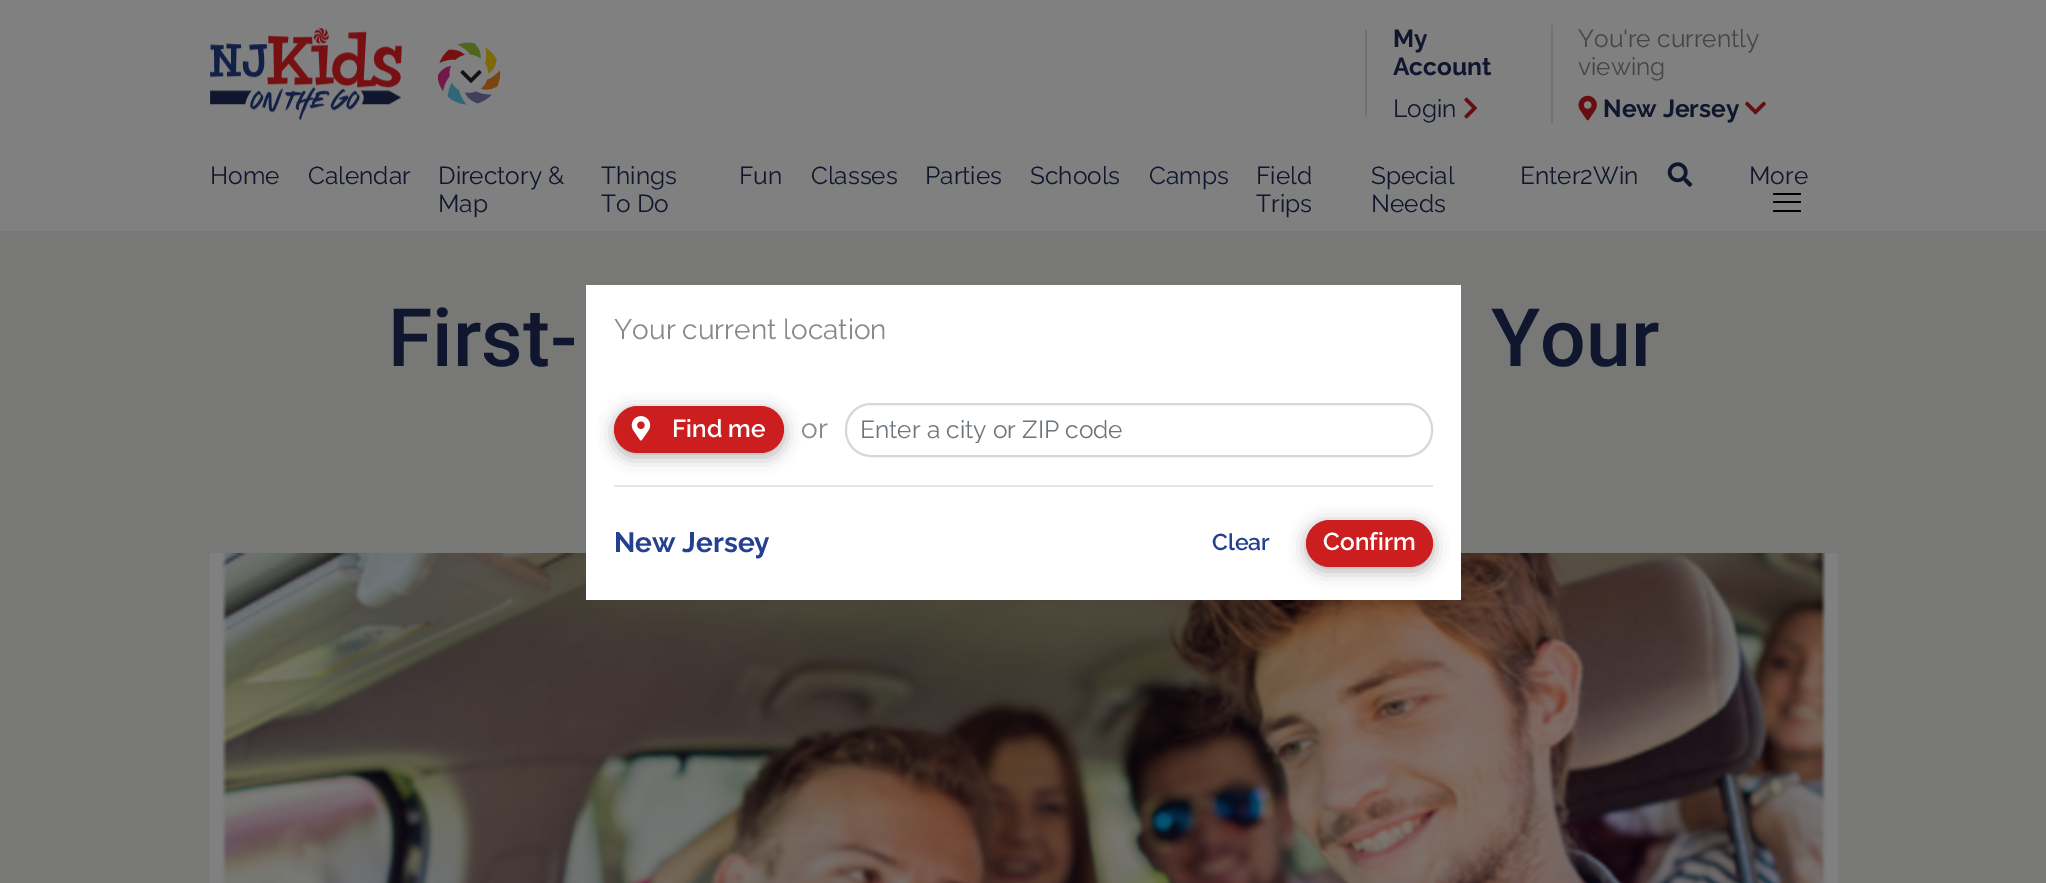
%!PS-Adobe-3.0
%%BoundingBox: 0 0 2046 883
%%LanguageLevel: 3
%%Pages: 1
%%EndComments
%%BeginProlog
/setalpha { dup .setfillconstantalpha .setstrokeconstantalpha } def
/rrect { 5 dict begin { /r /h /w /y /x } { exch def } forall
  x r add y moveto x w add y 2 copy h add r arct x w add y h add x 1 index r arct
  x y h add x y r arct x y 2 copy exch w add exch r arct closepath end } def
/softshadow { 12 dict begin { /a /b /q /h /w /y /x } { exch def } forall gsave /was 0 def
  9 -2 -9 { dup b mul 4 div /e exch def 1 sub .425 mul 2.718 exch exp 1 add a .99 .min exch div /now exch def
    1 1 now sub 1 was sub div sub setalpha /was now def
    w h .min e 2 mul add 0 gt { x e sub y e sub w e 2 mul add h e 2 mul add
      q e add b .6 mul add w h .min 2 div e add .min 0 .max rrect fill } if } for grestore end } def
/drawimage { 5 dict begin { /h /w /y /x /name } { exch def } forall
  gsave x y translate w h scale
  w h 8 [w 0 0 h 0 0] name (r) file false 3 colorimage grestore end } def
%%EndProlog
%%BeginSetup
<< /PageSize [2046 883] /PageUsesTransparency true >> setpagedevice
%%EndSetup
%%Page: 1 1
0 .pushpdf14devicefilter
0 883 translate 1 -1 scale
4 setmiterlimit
0.502 setgray
0 0 2046 883 rectfill
(images/1.raw) 210 28 192 93 drawimage
(images/2.raw) 438 42 63 63 drawimage
(images/3.raw) 460 70 22 13 drawimage
0.443 0.443 0.447 setrgbcolor
1365 30 2 87 rectfill
1551 25 2 98 rectfill
(images/4.raw) 1464 97 13 22 drawimage
(images/5.raw) 1578 95 19 26 drawimage
(images/6.raw) 1745 101 21 14 drawimage
(images/7.raw) 1667 162 26 25 drawimage
0 setgray
1773 201 28 2 1 rrect fill
1773 193 28 2 1 rrect fill
1773 210 28 2 1 rrect fill
gsave newpath 0 231 moveto 2046 231 lineto 2046 883 lineto 0 883 lineto closepath clip newpath
<< /ShadingType 2 /ColorSpace /DeviceRGB /Coords [1024 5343 1024 231] /Extend [true true] /Function << /FunctionType 2 /Domain [0 1] /C0 [0.502 0.502 0.502] /C1 [0.471 0.471 0.463] /N 1 >> >> shfill grestore
(images/8.raw) 210 553 1628 330 drawimage
1 setgray
586 285 875 315 rectfill
0 setgray
614 410 170 47 23.5 8 0.31 softshadow
0.8 0.114 0.122 setrgbcolor
614 406 170 47 23.5 rrect fill
(images/9.raw) 631 416 20 25 drawimage
0.843 setgray
2 setlinewidth
846 404 586 52 25 rrect stroke
0.902 setgray
614 485 819 2 rectfill
0 setgray
1306 523 127 48 24 8 0.31 softshadow
0.8 0.114 0.122 setrgbcolor
1306 520 127 47 23.5 rrect fill
/Raleway-Bold [24.5 0 0 -24.5 0 0] selectfont
0.059 0.086 0.176 setrgbcolor
1393 47 moveto (My) show
1393 75 moveto (Account) show
/Raleway-Regular [24.5 0 0 -24.5 0 0] selectfont
1393 117 moveto (Login) show
0.271 setgray
1578 47 moveto (You're currently) show
1578 75 moveto (viewing) show
/Raleway-Bold [24.5 0 0 -24.5 0 0] selectfont
0.059 0.086 0.176 setrgbcolor
1603 117 moveto (New Jersey) show
/Raleway-Regular [24.5 0 0 -24.5 0 0] selectfont
210 184 moveto (Home) show
308 184 moveto (Calendar) show
438 184 moveto (Directory &) show
438 212 moveto (Map) show
601 184 moveto (Things) show
601 212 moveto (To Do) show
739 184 moveto (Fun) show
811 184 moveto (Classes) show
925 184 moveto (Parties) show
1030 184 moveto (Schools) show
1149 184 moveto (Camps) show
1256 184 moveto (Field) show
1256 212 moveto (Trips) show
1371 184 moveto (Special) show
1371 212 moveto (Needs) show
1520 184 moveto (Enter2Win) show
1749 184 moveto (More) show
/Roboto-Medium [80.5 0 0 -80.5 0 0] selectfont
388 366 moveto (First-) show
1491 366 moveto (Your) show
/Raleway-Regular [28 0 0 -28 0 0] selectfont
0.537 setgray
614 339 moveto (Your current location) show
/Raleway-SemiBold [24.5 0 0 -24.5 0 0] selectfont
1 setgray
672 437 moveto (Find me) show
/Raleway-Regular [28 0 0 -28 0 0] selectfont
0.537 setgray
801 438 moveto (or) show
gsave
861 415 557 28 rectclip
/Raleway-Regular [24.5 0 0 -24.5 0 0] selectfont
0.424 0.459 0.49 setrgbcolor
860 438 moveto (Enter a city or ZIP code) show
grestore
/Raleway-Bold [28 0 0 -28 0 0] selectfont
0.145 0.251 0.557 setrgbcolor
614 552 moveto (New Jersey) show
/Raleway-SemiBold [23 0 0 -23 0 0] selectfont
1212 550 moveto (Clear) show
/Raleway-SemiBold [24.5 0 0 -24.5 0 0] selectfont
1 setgray
1323 550 moveto (Confirm) show
.poppdf14devicefilter showpage
%%EOF
